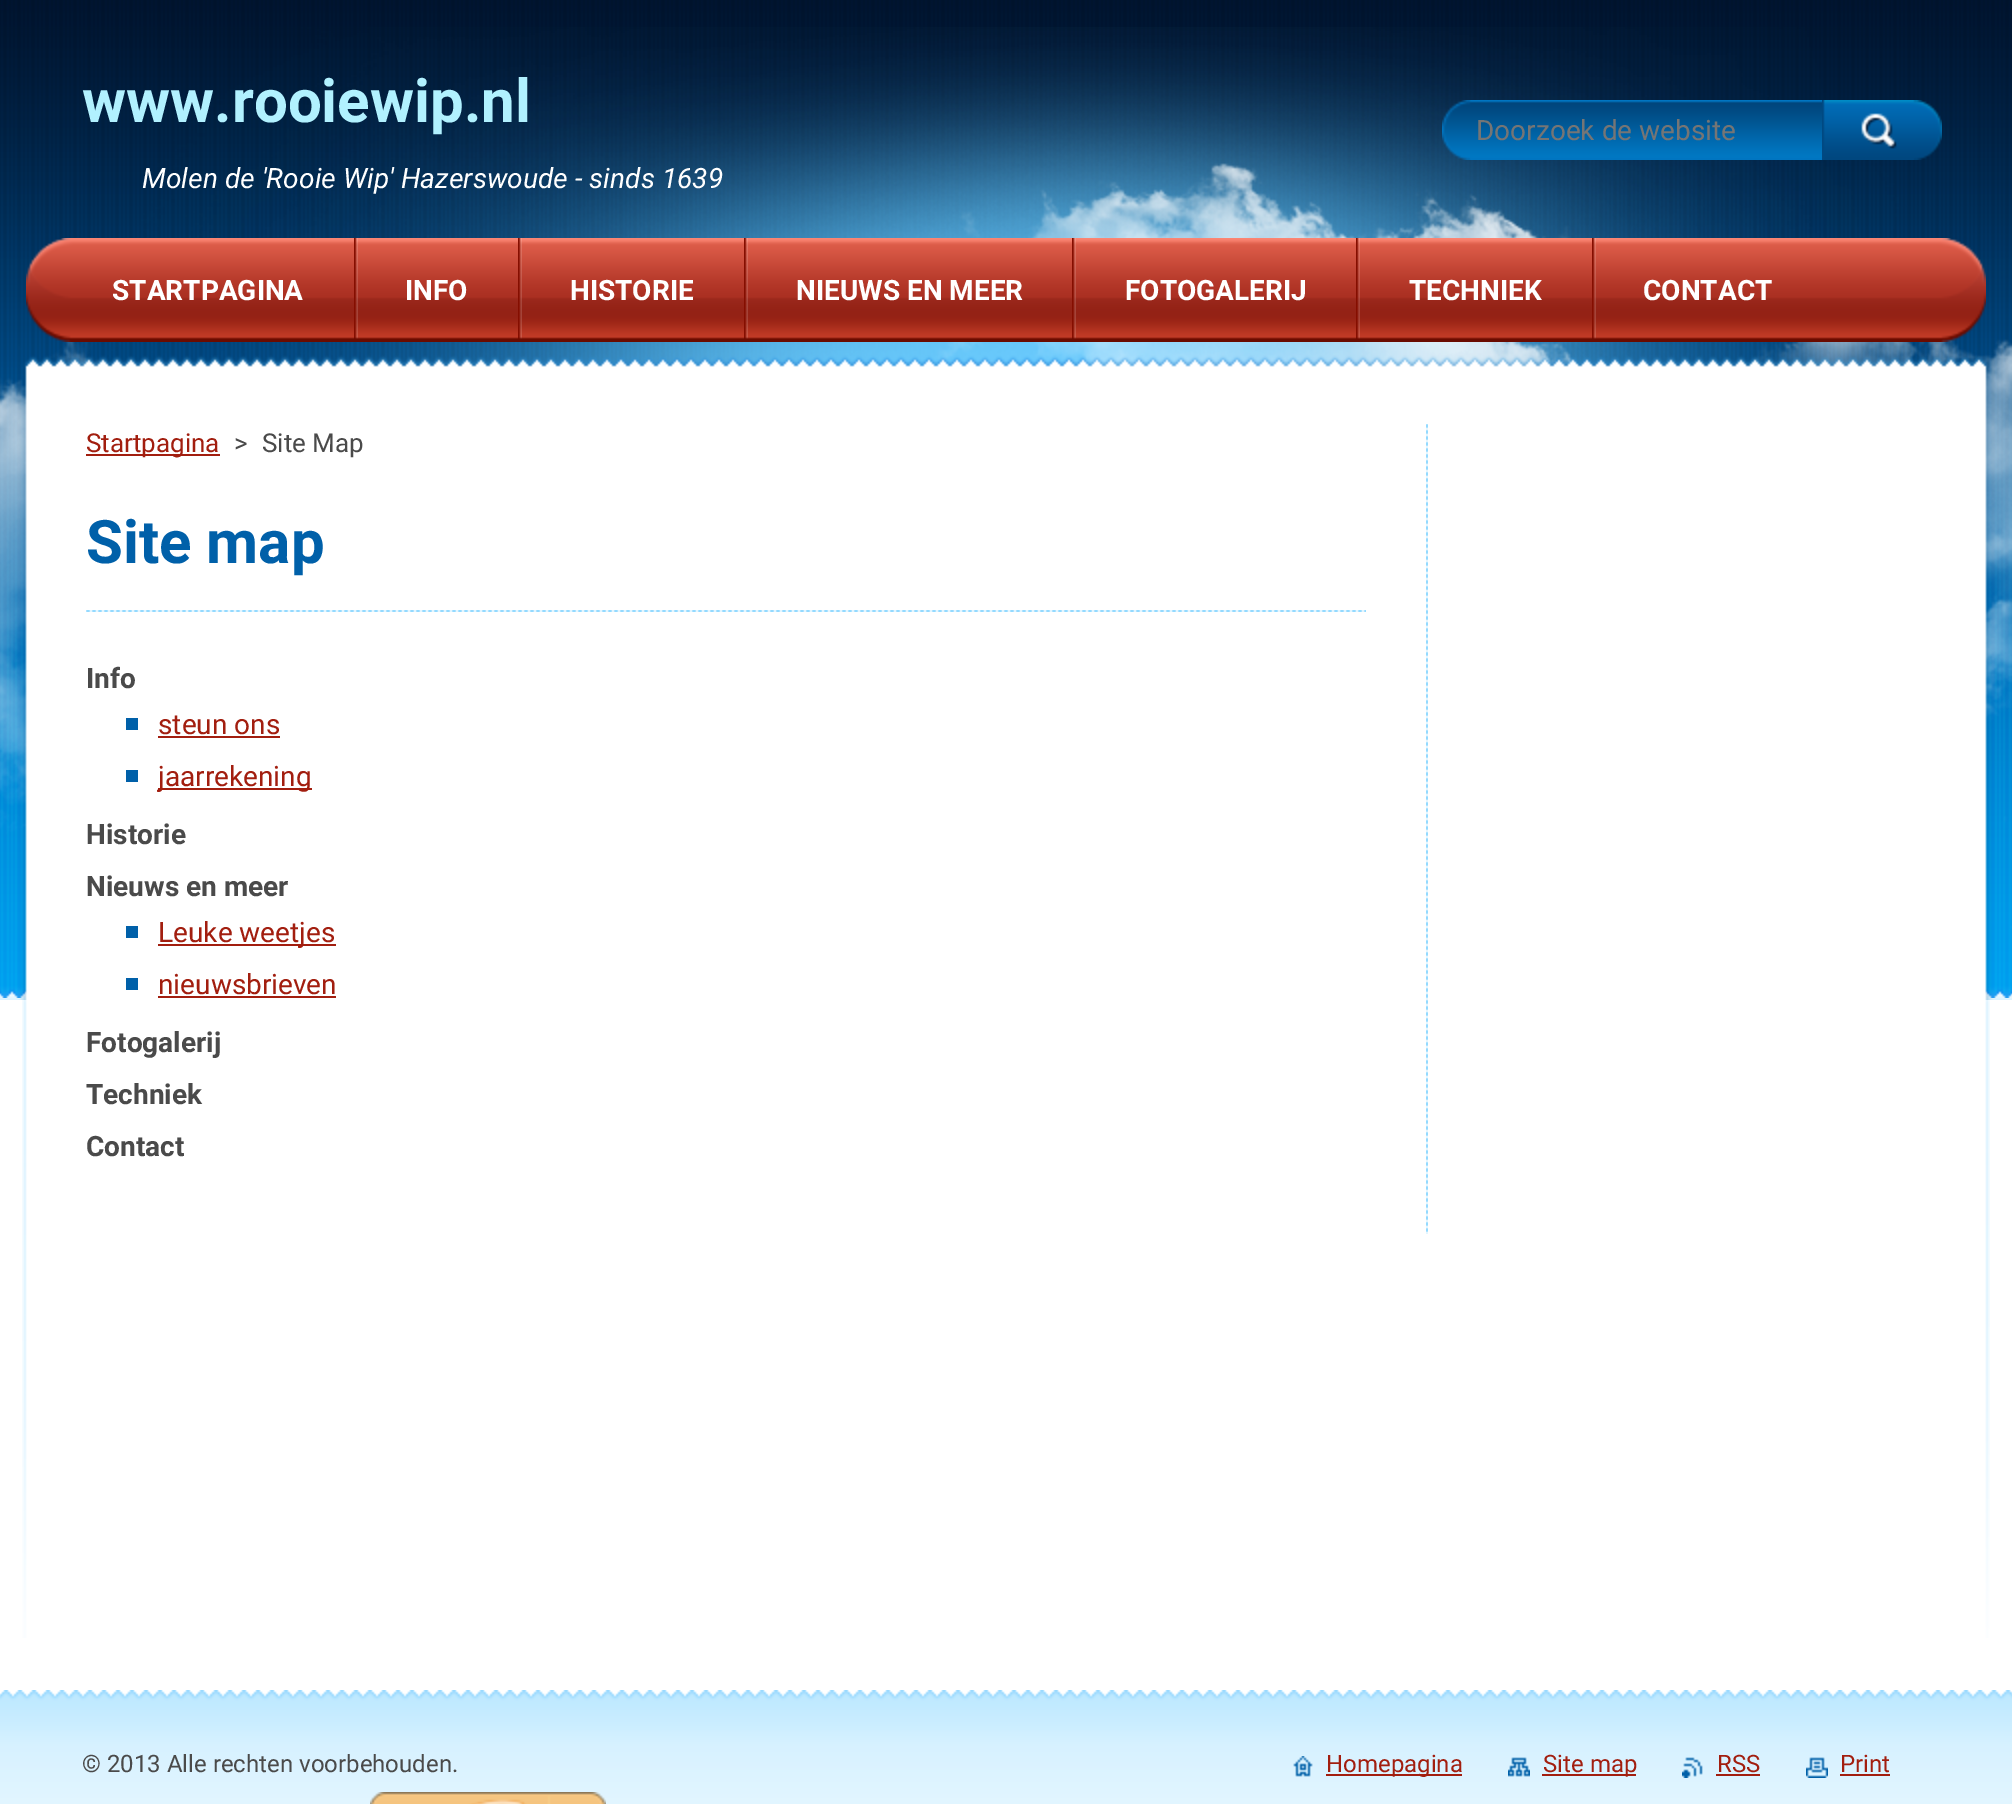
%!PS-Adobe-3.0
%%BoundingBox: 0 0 2012 1804
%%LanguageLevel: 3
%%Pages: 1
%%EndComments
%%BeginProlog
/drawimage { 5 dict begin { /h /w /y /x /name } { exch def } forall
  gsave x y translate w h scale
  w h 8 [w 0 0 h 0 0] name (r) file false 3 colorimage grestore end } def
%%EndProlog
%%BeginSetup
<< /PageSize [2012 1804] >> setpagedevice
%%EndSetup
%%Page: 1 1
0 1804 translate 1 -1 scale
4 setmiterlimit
1 setgray
0 0 2012 1804 rectfill
(images/1.raw) 0 0 2012 998 drawimage
(images/2.raw) 0 27 2012 973 drawimage
(images/3.raw) 1442 100 380 60 drawimage
(images/4.raw) 1822 100 120 60 drawimage
(images/5.raw) 26 238 1960 104 drawimage
(images/6.raw) 354 238 4 101 drawimage
(images/6.raw) 518 238 4 101 drawimage
(images/6.raw) 744 238 4 101 drawimage
(images/6.raw) 1072 238 4 101 drawimage
(images/6.raw) 1356 238 4 101 drawimage
(images/6.raw) 1592 238 4 101 drawimage
(images/7.raw) 22 1000 1968 638 drawimage
(images/8.raw) 1426 424 2 810 drawimage
0.635 0.118 0.059 setrgbcolor
86 454 134 2 rectfill
(images/9.raw) 86 610 1280 2 drawimage
0 0.376 0.663 setrgbcolor
126 718 12 12 rectfill
0.635 0.118 0.059 setrgbcolor
158 736 122 2 rectfill
0 0.376 0.663 setrgbcolor
126 770 12 12 rectfill
0.635 0.118 0.059 setrgbcolor
158 788 154 2 rectfill
0 0.376 0.663 setrgbcolor
126 926 12 12 rectfill
0.635 0.118 0.059 setrgbcolor
158 944 178 2 rectfill
0 0.376 0.663 setrgbcolor
126 978 12 12 rectfill
0.635 0.118 0.059 setrgbcolor
158 996 178 2 rectfill
(images/10.raw) 0 1690 2012 114 drawimage
(images/11.raw) 1293 1756 20 21 drawimage
1326 1774 136 2 rectfill
(images/12.raw) 1508 1757 22 20 drawimage
1542 1774 94 2 rectfill
(images/13.raw) 1682 1757 21 21 drawimage
1716 1774 44 2 rectfill
(images/14.raw) 1806 1757 22 21 drawimage
1840 1774 50 2 rectfill
(images/15.raw) 370 1792 236 12 drawimage
/Roboto-Bold [60 0 0 -60 0 0] selectfont
0.694 0.945 1 setrgbcolor
82 122 moveto (www.rooiewip.nl) show
/Roboto-Italic [28 0 0 -28 0 0] selectfont
1 setgray
142 188 moveto (Molen de 'Rooie Wip' Hazerswoude - sinds 1639) show
/Roboto-Regular [28 0 0 -28 0 0] selectfont
0.459 setgray
1476 140 moveto (Doorzoek de website) show
/Roboto-Bold [28 0 0 -28 0 0] selectfont
1 setgray
112 300 moveto (STARTPAGINA) show
405 300 moveto (INFO) show
570 300 moveto (HISTORIE) show
796 300 moveto (NIEUWS EN MEER) show
1125 300 moveto (FOTOGALERIJ) show
1409 300 moveto (TECHNIEK) show
1643 300 moveto (CONTACT) show
/Roboto-Regular [26 0 0 -26 0 0] selectfont
0.635 0.118 0.059 setrgbcolor
86 452 moveto (Startpagina) show
0.29 setgray
234 452 moveto (>) show
262 452 moveto (Site Map) show
/Roboto-Bold [60 0 0 -60 0 0] selectfont
0 0.376 0.663 setrgbcolor
86 563 moveto (Site map) show
/Roboto-Bold [28 0 0 -28 0 0] selectfont
0.29 setgray
86 688 moveto (Info) show
/Roboto-Regular [28 0 0 -28 0 0] selectfont
0.635 0.118 0.059 setrgbcolor
158 734 moveto (steun ons) show
158 786 moveto (jaarrekening) show
/Roboto-Bold [28 0 0 -28 0 0] selectfont
0.29 setgray
86 844 moveto (Historie) show
86 896 moveto (Nieuws en meer) show
/Roboto-Regular [28 0 0 -28 0 0] selectfont
0.635 0.118 0.059 setrgbcolor
158 942 moveto (Leuke weetjes) show
158 994 moveto (nieuwsbrieven) show
/Roboto-Bold [28 0 0 -28 0 0] selectfont
0.29 setgray
86 1052 moveto (Fotogalerij) show
86 1104 moveto (Techniek) show
86 1156 moveto (Contact) show
/Roboto-Regular [24 0 0 -24 0 0] selectfont
82 1772 moveto (© 2013 Alle rechten voorbehouden.) show
0.635 0.118 0.059 setrgbcolor
1326 1772 moveto (Homepagina) show
1543 1772 moveto (Site map) show
1717 1772 moveto (RSS) show
1840 1772 moveto (Print) show
showpage
%%EOF
